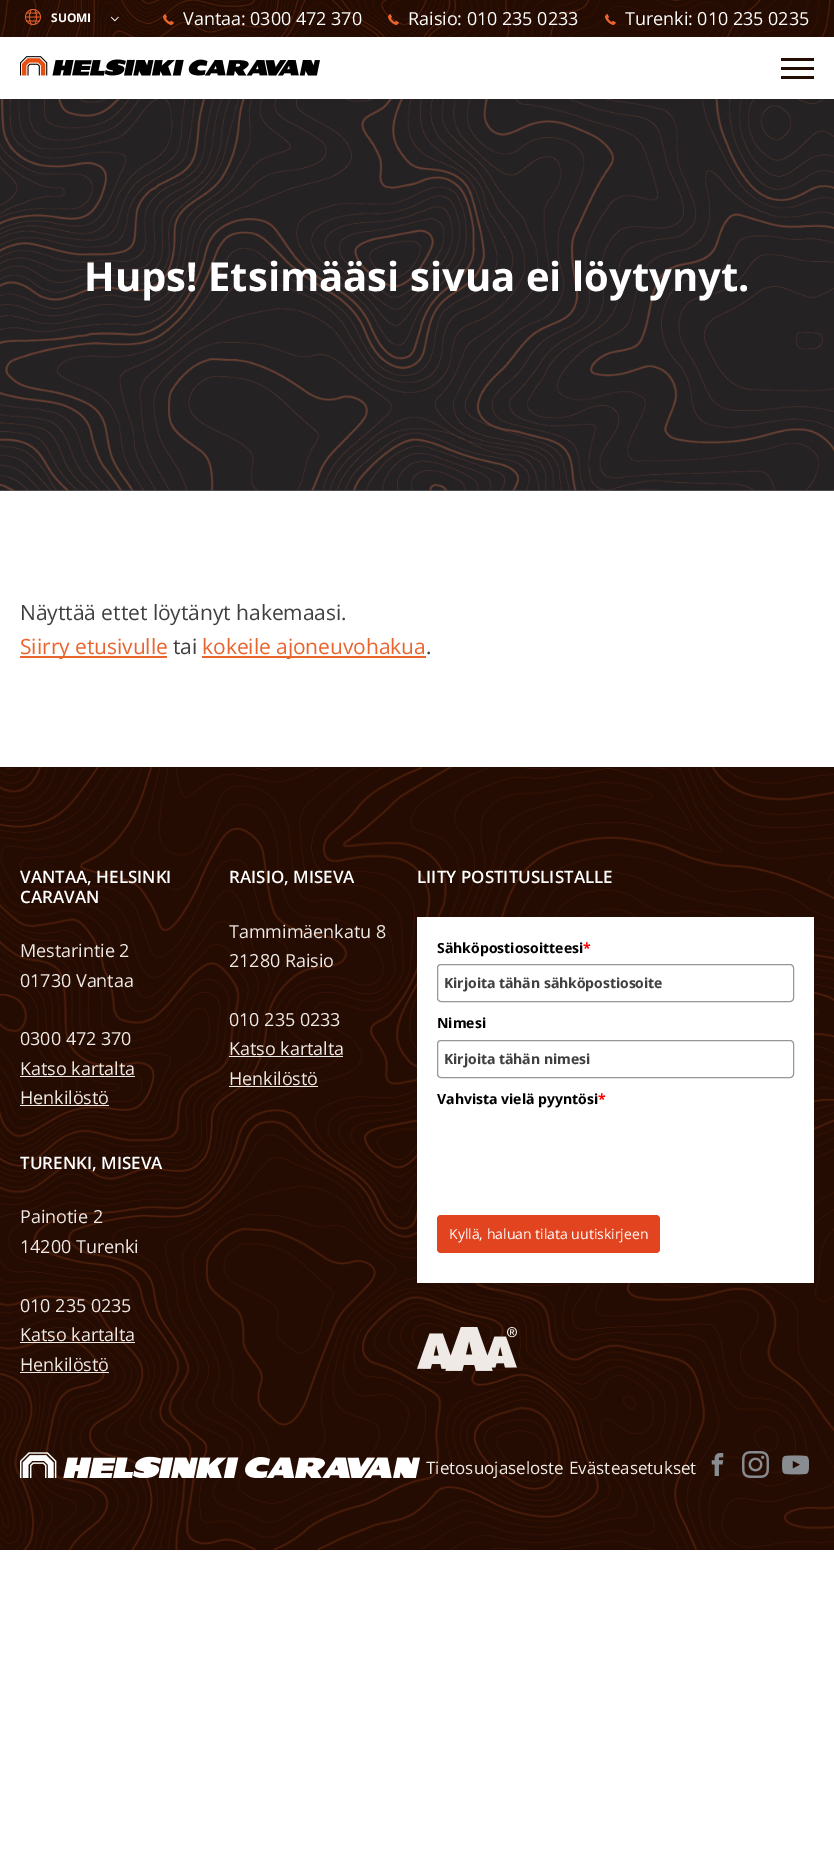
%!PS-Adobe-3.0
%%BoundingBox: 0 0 834 1870
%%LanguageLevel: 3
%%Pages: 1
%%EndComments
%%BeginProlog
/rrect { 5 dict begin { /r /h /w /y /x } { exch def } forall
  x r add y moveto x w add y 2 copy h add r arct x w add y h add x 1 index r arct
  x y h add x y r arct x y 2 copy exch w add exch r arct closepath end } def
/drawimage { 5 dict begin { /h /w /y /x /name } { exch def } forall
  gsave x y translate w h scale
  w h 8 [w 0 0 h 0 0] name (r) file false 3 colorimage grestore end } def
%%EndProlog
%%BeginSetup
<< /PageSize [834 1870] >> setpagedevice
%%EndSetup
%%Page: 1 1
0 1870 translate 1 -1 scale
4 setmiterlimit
1 setgray
0 0 834 1870 rectfill
0.145 0.047 0.008 setrgbcolor
0 0 834 37 rectfill
(images/1.raw) 0 0 831 37 drawimage
(images/2.raw) 25 9 16 16 drawimage
(images/3.raw) 110 16 9 6 drawimage
(images/4.raw) 163 14 11 11 drawimage
(images/5.raw) 388 14 11 11 drawimage
(images/6.raw) 605 14 11 11 drawimage
(images/7.raw) 20 56 300 20 drawimage
781 67 33 3 rectfill
781 58 33 3 rectfill
781 76 33 3 rectfill
(images/8.raw) 0 99 834 392 drawimage
0.918 0.392 0.176 setrgbcolor
20 656 147 2 rectfill
202 656 224 2 rectfill
0.145 0.047 0.008 setrgbcolor
0 767 834 783 rectfill
(images/9.raw) 0 767 834 783 drawimage
0.937 0.918 0.898 setrgbcolor
20 1076 115 1 rectfill
20 1105 89 1 rectfill
229 1056 114 1 rectfill
229 1086 89 1 rectfill
20 1342 115 1 rectfill
20 1372 89 1 rectfill
1 setgray
417 917 397 366 rectfill
0.592 setgray
437.5 964.5 356 37 3.5 rrect stroke
437.5 1040.5 356 37 3.5 rrect stroke
0.882 0.267 0.118 setrgbcolor
437 1215 223 38 4 rrect fill
(images/10.raw) 417 1327 100 44 drawimage
(images/11.raw) 20 1452 400 26 drawimage
(images/12.raw) 711 1453 13 23 drawimage
(images/13.raw) 742 1451 27 27 drawimage
(images/14.raw) 782 1455 27 20 drawimage
/OpenSans-Bold [12 0 0 -12 0 0] selectfont
1 setgray
51 22 moveto -0.05 0 (SUOMI) ashow
/OpenSans-Regular [18 0 0 -18 0 0] selectfont
183 25 moveto -0.05 0 (Vantaa: 0300 472 370) ashow
408 25 moveto -0.05 0 (Raisio: 010 235 0233) ashow
625 25 moveto -0.05 0 (Turenki: 010 235 0235) ashow
/OpenSans-Bold [40 0 0 -40 0 0] selectfont
84 291 moveto (Hups! Etsimääsi sivua ei löytynyt.) show
/OpenSans-Regular [21 0 0 -21 0 0] selectfont
0.251 setgray
20 620 moveto -0.05 0 (Näyttää ettet löytänyt hakemaasi.) ashow
0.918 0.392 0.176 setrgbcolor
20 654 moveto -0.05 0 (Siirry etusivulle) ashow
0.251 setgray
173 654 moveto -0.05 0 (tai) ashow
0.918 0.392 0.176 setrgbcolor
202 654 moveto -0.05 0 (kokeile ajoneuvohakua) ashow
0.251 setgray
426 654 moveto -0.05 0 (.) ashow
/OpenSans-SemiBold [17 0 0 -17 0 0] selectfont
1 setgray
20 883 moveto (VANTAA, HELSINKI) show
20 903 moveto (CARAVAN) show
/OpenSans-Regular [18 0 0 -18 0 0] selectfont
0.937 0.918 0.898 setrgbcolor
20 957 moveto -0.05 0 (Mestarintie 2) ashow
20 987 moveto -0.05 0 (01730 Vantaa) ashow
20 1045 moveto -0.05 0 (0300 472 370) ashow
20 1075 moveto -0.05 0 (Katso kartalta) ashow
20 1104 moveto -0.05 0 (Henkilöstö) ashow
/OpenSans-SemiBold [17 0 0 -17 0 0] selectfont
1 setgray
229 883 moveto (RAISIO, MISEVA) show
/OpenSans-Regular [18 0 0 -18 0 0] selectfont
0.937 0.918 0.898 setrgbcolor
229 938 moveto -0.05 0 (Tammimäenkatu 8) ashow
229 967 moveto -0.05 0 (21280 Raisio) ashow
229 1026 moveto -0.05 0 (010 235 0233) ashow
229 1055 moveto -0.05 0 (Katso kartalta) ashow
229 1085 moveto -0.05 0 (Henkilöstö) ashow
/OpenSans-SemiBold [17 0 0 -17 0 0] selectfont
1 setgray
20 1169 moveto (TURENKI, MISEVA) show
/OpenSans-Regular [18 0 0 -18 0 0] selectfont
0.937 0.918 0.898 setrgbcolor
20 1223 moveto -0.05 0 (Painotie 2) ashow
20 1253 moveto -0.05 0 (14200 Turenki) ashow
20 1312 moveto -0.05 0 (010 235 0235) ashow
20 1341 moveto -0.05 0 (Katso kartalta) ashow
20 1371 moveto -0.05 0 (Henkilöstö) ashow
/OpenSans-SemiBold [17 0 0 -17 0 0] selectfont
1 setgray
417 883 moveto (LIITY POSTITUSLISTALLE) show
/OpenSans-Bold [14 0 0 -14 0 0] selectfont
0 setgray
437 953 moveto (Sähköpostiosoitteesi) show
1 0 0 setrgbcolor
583 953 moveto (*) show
0.251 setgray
444 988 moveto -0.05 0 (Kirjoita tähän sähköpostiosoite) ashow
0 setgray
437 1028 moveto (Nimesi) show
0.251 setgray
444 1064 moveto -0.05 0 (Kirjoita tähän nimesi) ashow
0 setgray
437 1104 moveto (Vahvista vielä pyyntösi) show
1 0 0 setrgbcolor
598 1104 moveto (*) show
/OpenSans-Regular [14 0 0 -14 0 0] selectfont
1 setgray
449 1239 moveto (Kyllä, haluan tilata uutiskirjeen) show
/OpenSans-Regular [17 0 0 -17 0 0] selectfont
0.937 0.918 0.898 setrgbcolor
426 1474 moveto (Tietosuojaseloste) show
569 1474 moveto (Evästeasetukset) show
showpage
%%EOF
